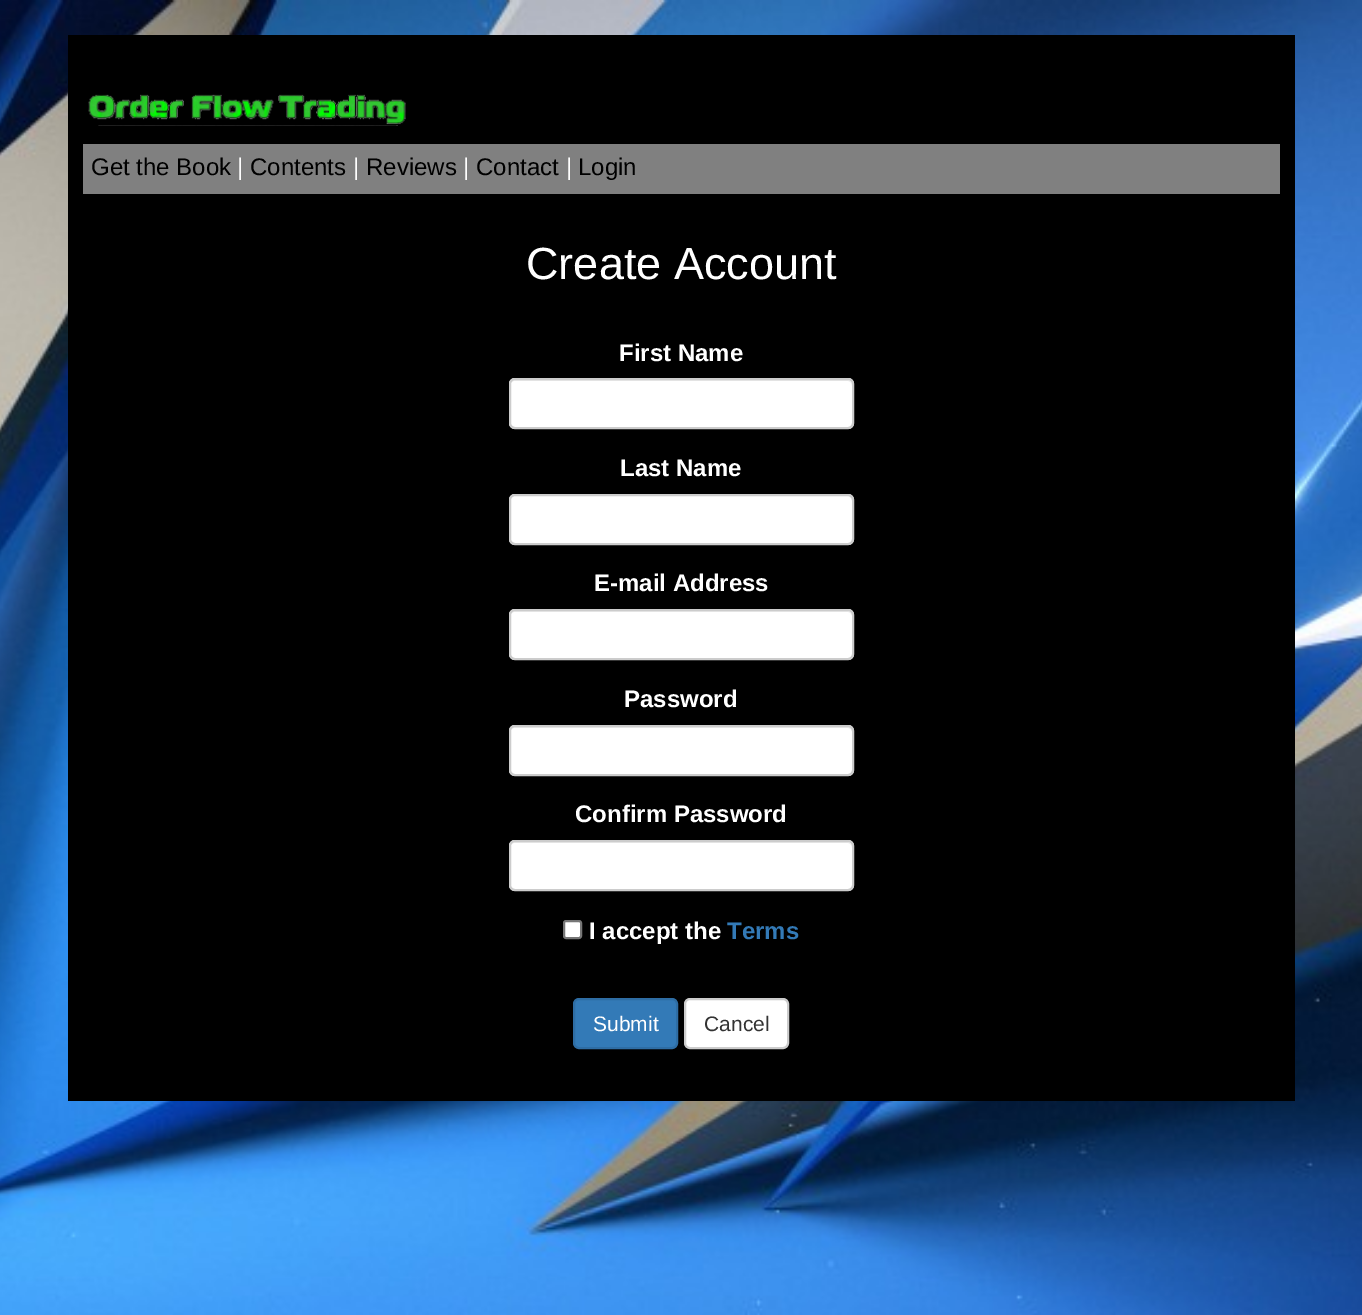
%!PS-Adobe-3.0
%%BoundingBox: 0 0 1362 1315
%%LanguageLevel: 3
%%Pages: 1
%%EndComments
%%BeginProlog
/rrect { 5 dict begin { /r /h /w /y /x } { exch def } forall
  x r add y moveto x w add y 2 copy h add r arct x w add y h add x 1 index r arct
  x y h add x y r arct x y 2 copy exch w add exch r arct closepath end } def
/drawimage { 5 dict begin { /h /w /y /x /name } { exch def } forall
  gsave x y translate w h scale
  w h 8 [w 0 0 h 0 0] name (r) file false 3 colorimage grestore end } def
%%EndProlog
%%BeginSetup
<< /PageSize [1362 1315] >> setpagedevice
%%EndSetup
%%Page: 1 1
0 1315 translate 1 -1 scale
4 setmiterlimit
1 setgray
0 0 1362 1315 rectfill
(images/1.raw) 0 0 1362 1315 drawimage
0 setgray
68 35 1227 1066 rectfill
(images/2.raw) 88 94 318 32 drawimage
0.502 setgray
83 144 1197 50 rectfill
1 setgray
509 378 345 51 6 rrect fill
0.925 setgray
newpath 514 381 moveto 848 381 lineto 850 381 852 383 852 386 curveto 852 383 850 380 847 380 curveto 515 380 lineto 512 380 510 383 510 386 curveto 510 383 512 381 514 381 curveto closepath fill
0.8 setgray
2 setlinewidth
510 379 343 49 5 rrect stroke
1 setgray
509 494 345 51 6 rrect fill
0.925 setgray
newpath 514 496 moveto 848 496 lineto 850 496 852 499 852 501 curveto 852 498 850 495 847 495 curveto 515 495 lineto 512 495 510 498 510 501 curveto 510 499 512 496 514 496 curveto closepath fill
0.8 setgray
510 495 343 49 5 rrect stroke
1 setgray
509 609 345 51 6 rrect fill
0.925 setgray
newpath 514 612 moveto 848 612 lineto 850 612 852 614 852 616 curveto 852 613 850 611 847 611 curveto 515 611 lineto 512 611 510 613 510 616 curveto 510 614 512 612 514 612 curveto closepath fill
0.8 setgray
510 610 343 49 5 rrect stroke
1 setgray
509 725 345 51 6 rrect fill
0.925 setgray
newpath 514 728 moveto 848 728 lineto 850 728 852 730 852 732 curveto 852 729 850 726 847 726 curveto 515 726 lineto 512 726 510 729 510 732 curveto 510 730 512 728 514 728 curveto closepath fill
0.8 setgray
510 726 343 49 5 rrect stroke
1 setgray
509 840 345 51 6 rrect fill
0.925 setgray
newpath 514 843 moveto 848 843 lineto 850 843 852 845 852 848 curveto 852 845 850 842 847 842 curveto 515 842 lineto 512 842 510 845 510 848 curveto 510 845 512 843 514 843 curveto closepath fill
0.8 setgray
510 841 343 49 5 rrect stroke
1 setgray
564 921 17 17 2 rrect gsave fill grestore
0.463 setgray
stroke
0.2 0.478 0.718 setrgbcolor
574 999 103 49 5 rrect gsave fill grestore
0.18 0.427 0.643 setrgbcolor
stroke
1 setgray
685 999 103 49 5 rrect gsave fill grestore
0.8 setgray
stroke
/LiberationSans-Regular [24 0 0 -24 0 0] selectfont
0 setgray
91 175 moveto (Get the Book) show
1 setgray
237 175 moveto (|) show
0 setgray
250 175 moveto (Contents) show
1 setgray
353 175 moveto (|) show
0 setgray
366 175 moveto (Reviews) show
1 setgray
463 175 moveto (|) show
0 setgray
476 175 moveto (Contact) show
1 setgray
566 175 moveto (|) show
0 setgray
578 175 moveto (Login) show
/LiberationSans-Regular [45 0 0 -45 0 0] selectfont
1 setgray
526 279 moveto (Create Account) show
/LiberationSans-Bold [24 0 0 -24 0 0] selectfont
619 361 moveto (First Name) show
620 476 moveto (Last Name) show
594 591 moveto (E-mail Address) show
624 707 moveto (Password) show
575 822 moveto (Confirm Password) show
589 939 moveto (I accept the) show
0.2 0.478 0.718 setrgbcolor
727 939 moveto (Terms) show
/LiberationSans-Regular [21 0 0 -21 0 0] selectfont
1 setgray
593 1031 moveto (Submit) show
0.2 setgray
704 1031 moveto (Cancel) show
showpage
%%EOF
